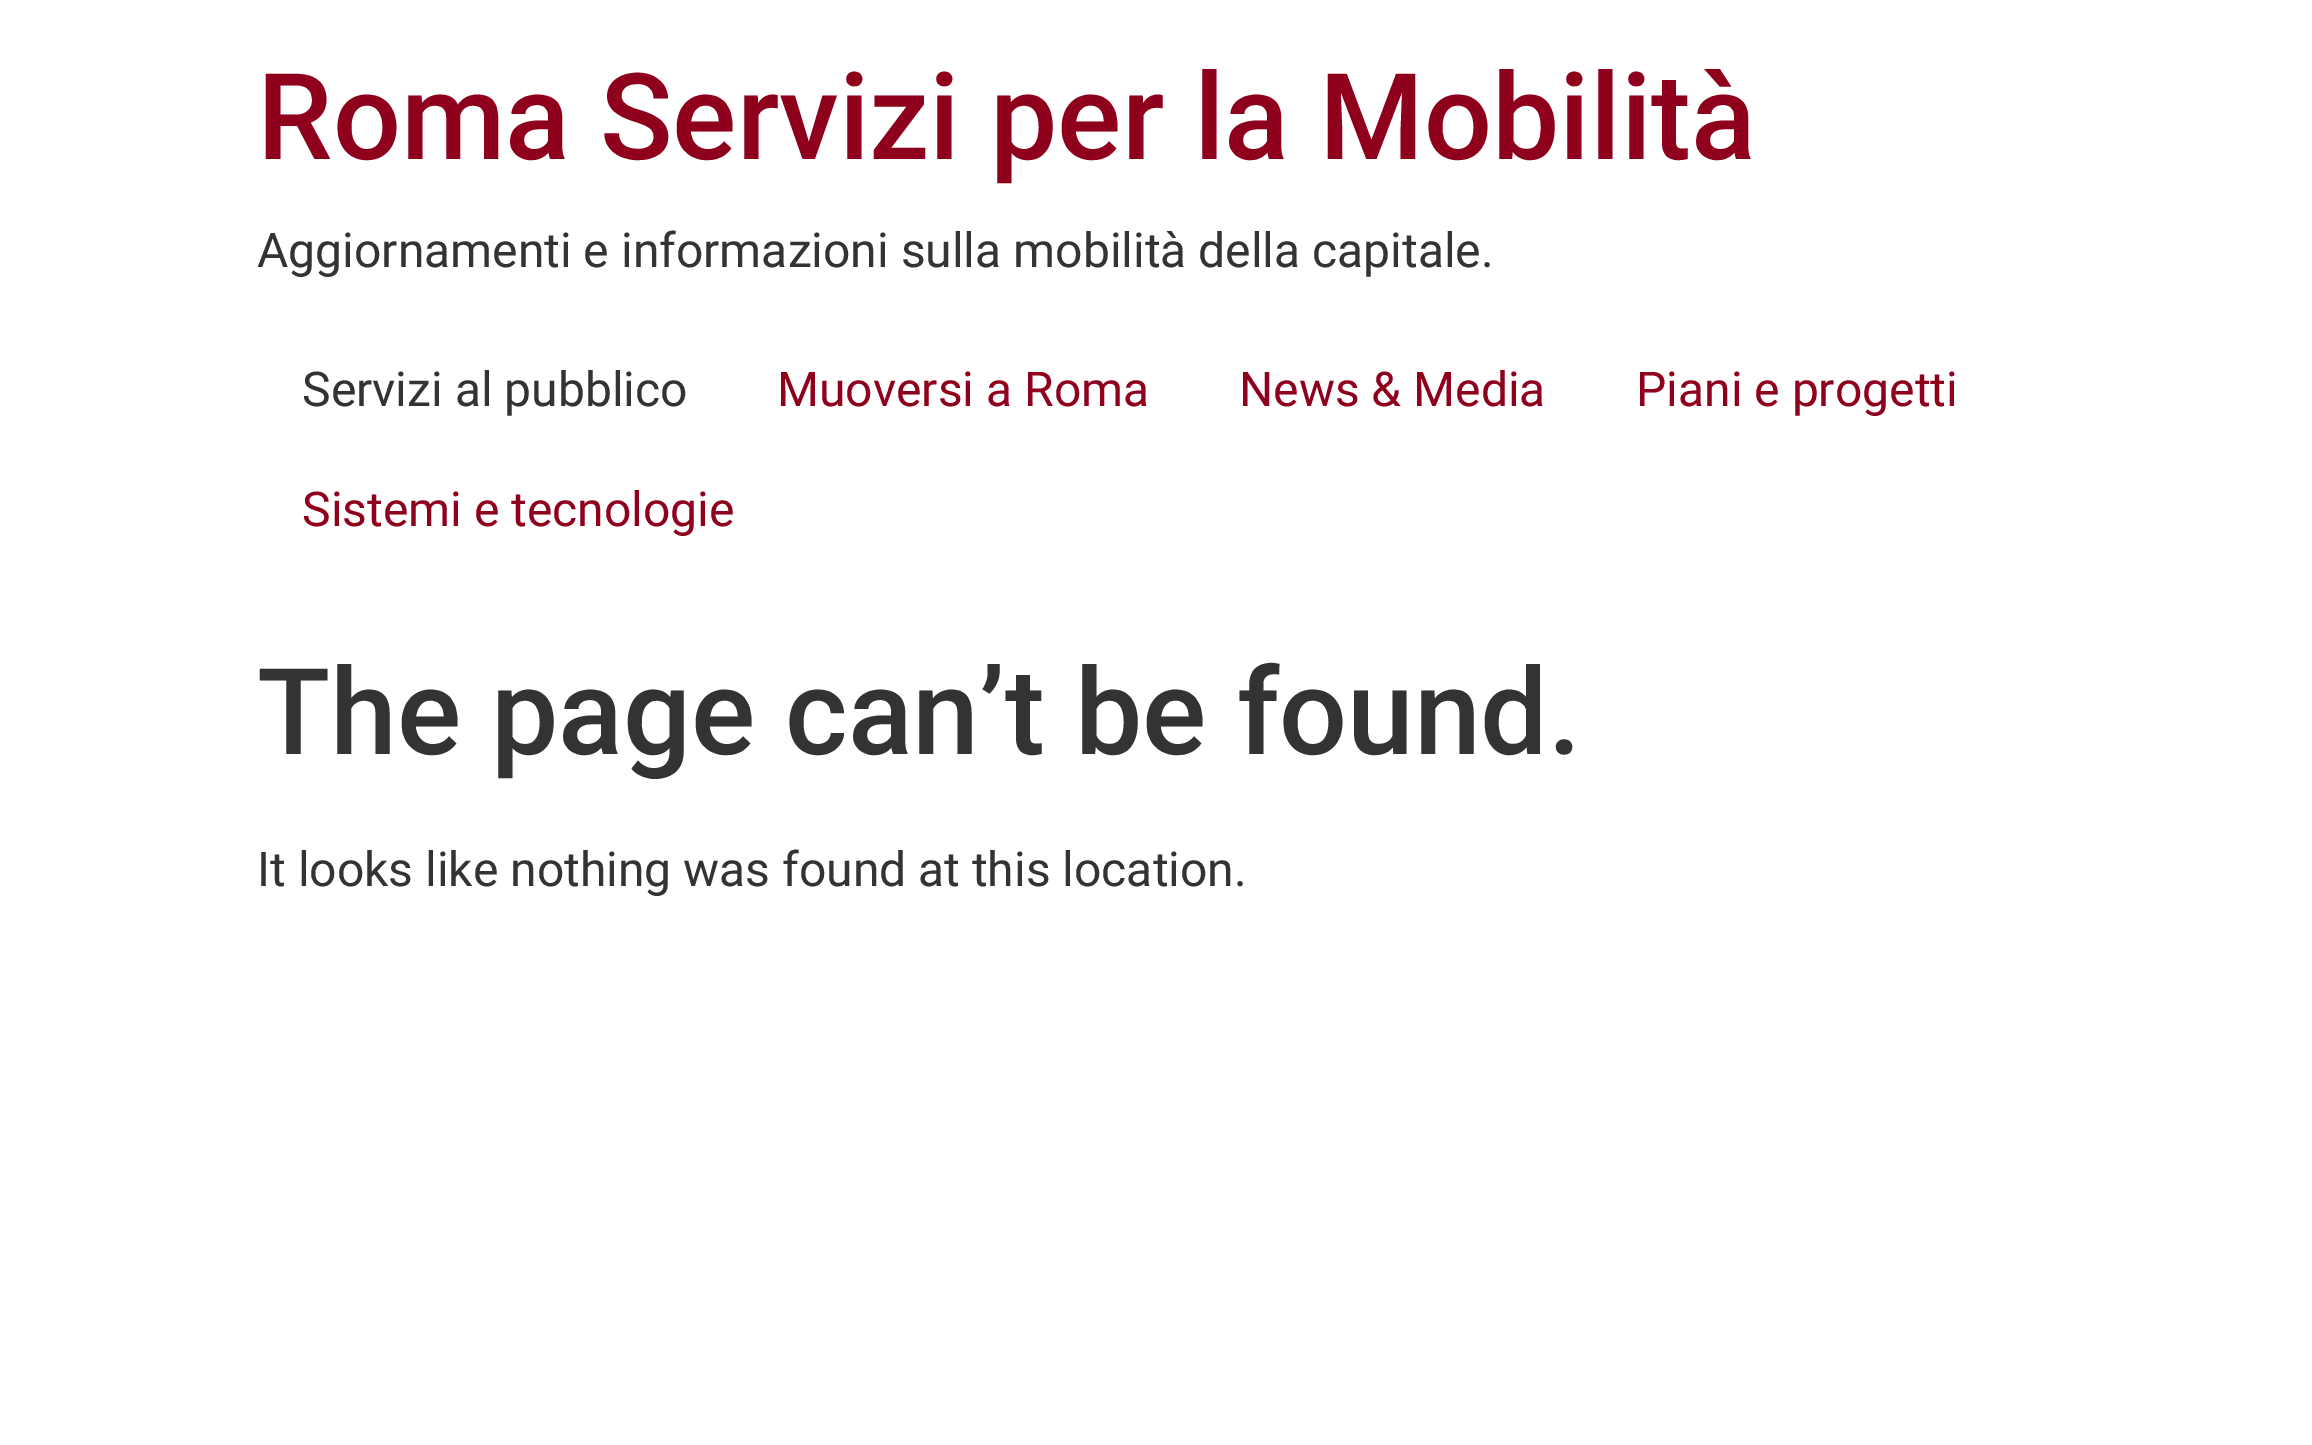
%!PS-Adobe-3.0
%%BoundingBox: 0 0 2312 1445
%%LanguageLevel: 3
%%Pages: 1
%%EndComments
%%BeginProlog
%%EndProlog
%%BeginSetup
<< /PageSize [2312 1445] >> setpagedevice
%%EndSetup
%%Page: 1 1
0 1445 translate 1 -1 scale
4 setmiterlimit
1 setgray
0 0 2312 1445 rectfill
/Roboto-Medium [120 0 0 -120 0 0] selectfont
0.561 0 0.114 setrgbcolor
257 159 moveto (Roma Servizi per la Mobilità) show
/Roboto-Regular [48 0 0 -48 0 0] selectfont
0.2 setgray
257 267 moveto (Aggiornamenti e informazioni sulla mobilità della capitale.) show
302 406 moveto (Servizi al pubblico) show
0.561 0 0.114 setrgbcolor
777 406 moveto (Muoversi a Roma) show
1239 406 moveto (News & Media) show
1636 406 moveto (Piani e progetti) show
302 526 moveto (Sistemi e tecnologie) show
/Roboto-Medium [120 0 0 -120 0 0] selectfont
0.2 setgray
257 754 moveto (The page can’t be found.) show
/Roboto-Regular [48 0 0 -48 0 0] selectfont
257 886 moveto (It looks like nothing was found at this location.) show
showpage
%%EOF
